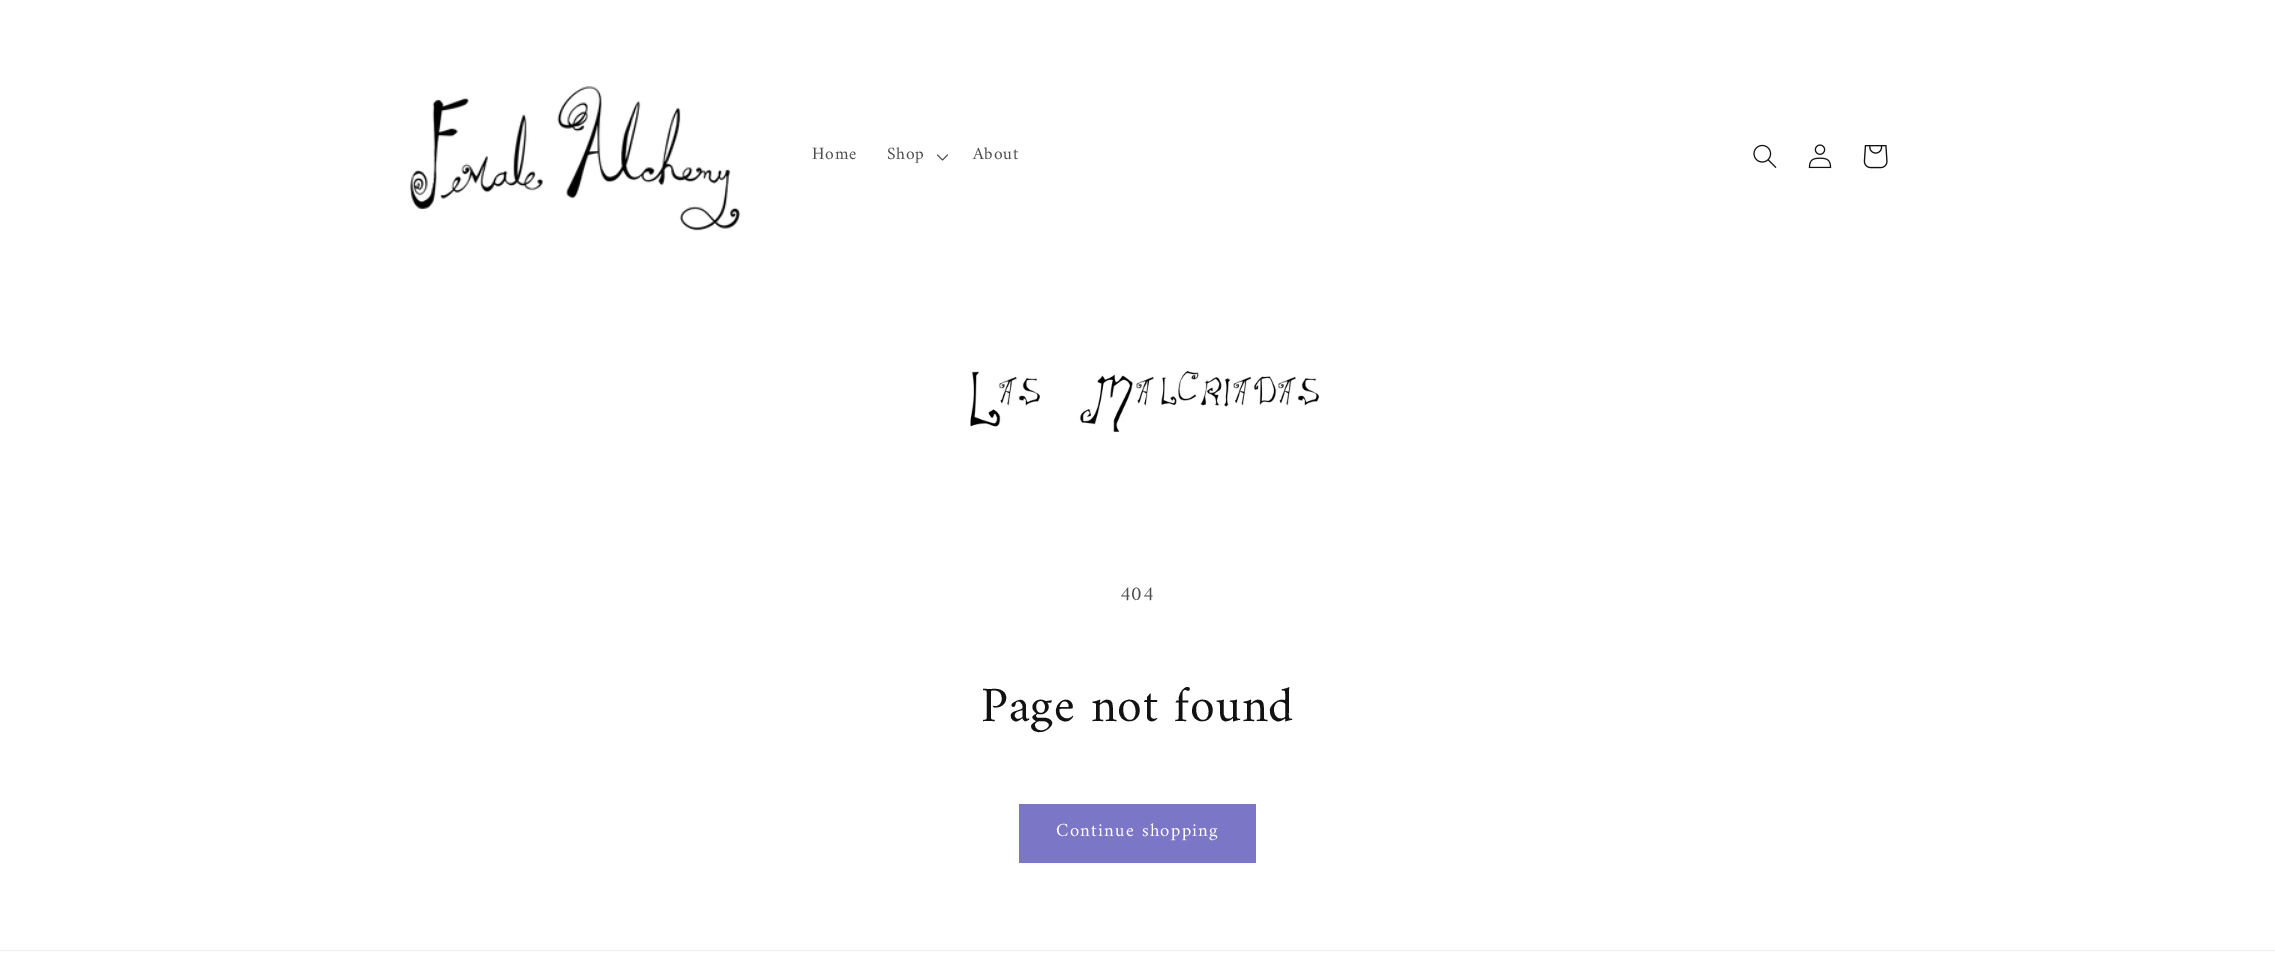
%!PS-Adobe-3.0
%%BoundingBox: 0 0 2275 962
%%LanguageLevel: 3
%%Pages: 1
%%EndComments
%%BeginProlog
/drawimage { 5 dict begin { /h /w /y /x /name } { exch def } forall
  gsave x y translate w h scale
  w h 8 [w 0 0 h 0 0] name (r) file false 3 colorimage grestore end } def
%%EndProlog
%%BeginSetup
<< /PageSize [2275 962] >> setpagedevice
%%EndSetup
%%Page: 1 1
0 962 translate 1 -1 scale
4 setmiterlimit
1 setgray
0 0 2275 962 rectfill
(images/1.raw) 409 86 332 145 drawimage
(images/2.raw) 937 154 11 7 drawimage
(images/3.raw) 1753 144 24 24 drawimage
(images/4.raw) 1808 144 24 25 drawimage
(images/5.raw) 1863 145 25 24 drawimage
(images/6.raw) 970 370 349 63 drawimage
0.486 0.463 0.78 setrgbcolor
1019 804 237 59 rectfill
0.925 setgray
0 950 2275 1 rectfill
/Amiri-Regular [17.5 0 0 -17.5 0 0] selectfont
0.302 setgray
812 159 moveto 0.75 0 (Home) ashow
887 159 moveto 0.75 0 (Shop) ashow
973 159 moveto 0.75 0 (About) ashow
/Amiri-Regular [20 0 0 -20 0 0] selectfont
1120 600 moveto 0.75 0 (404) ashow
/Amiri-Regular [50 0 0 -50 0 0] selectfont
0.071 setgray
981 721 moveto 0.75 0 (Page not found) ashow
/Amiri-Regular [18.75 0 0 -18.75 0 0] selectfont
1 setgray
1056 836 moveto 1.25 0 (Continue shopping) ashow
showpage
%%EOF
